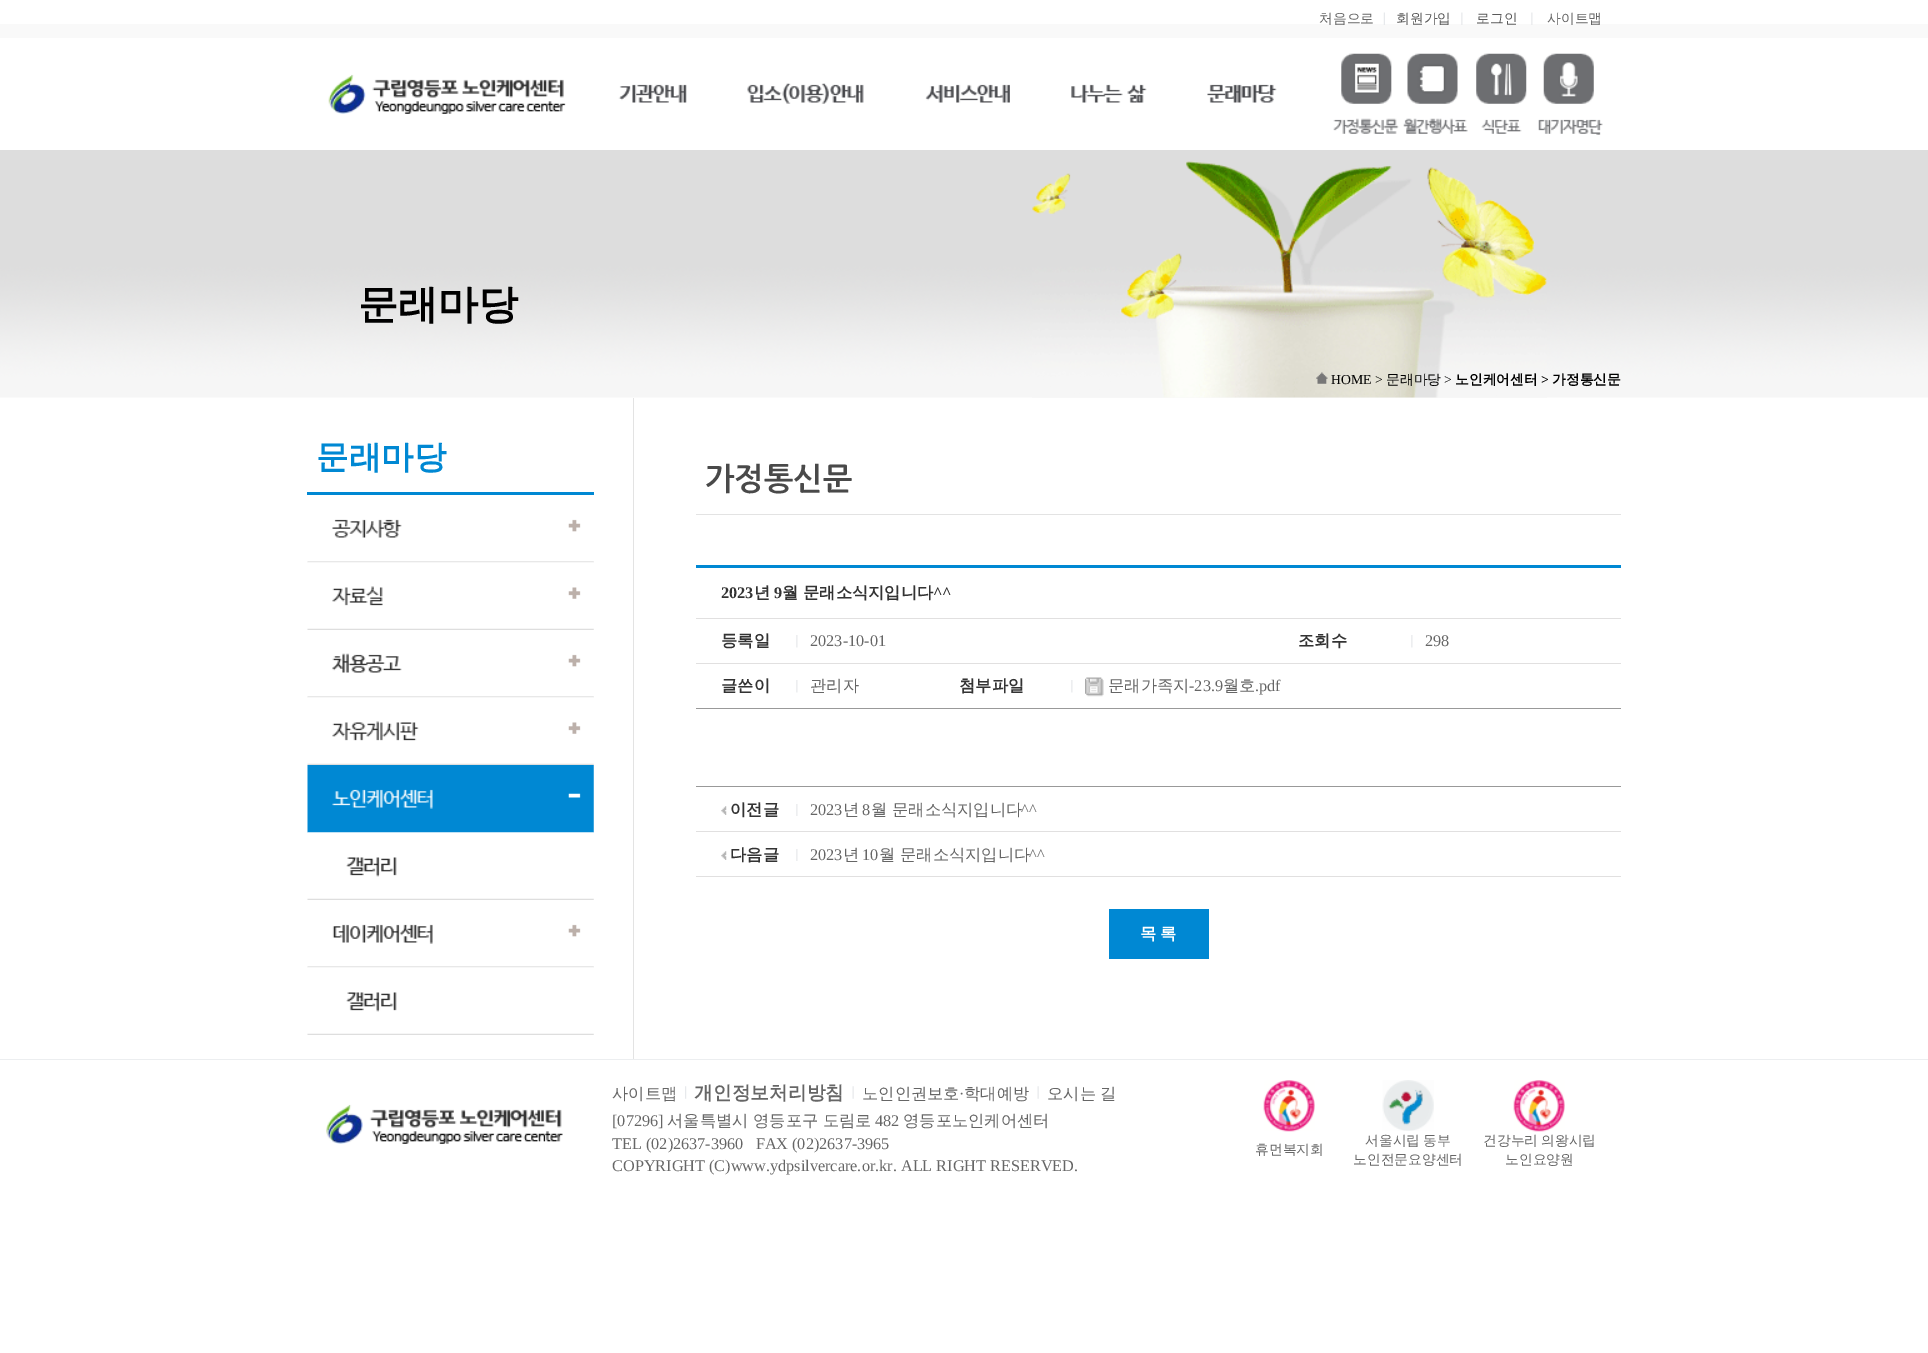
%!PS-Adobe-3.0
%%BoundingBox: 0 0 1928 1353
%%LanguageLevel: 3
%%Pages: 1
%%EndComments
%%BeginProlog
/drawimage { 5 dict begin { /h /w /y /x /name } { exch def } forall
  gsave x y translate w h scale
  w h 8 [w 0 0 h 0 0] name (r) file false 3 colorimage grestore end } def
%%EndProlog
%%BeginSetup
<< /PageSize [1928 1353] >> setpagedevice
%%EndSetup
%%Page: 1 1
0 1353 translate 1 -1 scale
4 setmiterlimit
1 setgray
0 0 1928 1353 rectfill
0.976 setgray
0 24 1928 14 rectfill
(images/1.raw) 1383 12 2 13 drawimage
(images/2.raw) 1461 12 2 13 drawimage
(images/2.raw) 1531 12 2 13 drawimage
(images/3.raw) 328 74 238 40 drawimage
(images/4.raw) 618 84 69 19 drawimage
(images/5.raw) 747 83 117 21 drawimage
(images/6.raw) 925 84 85 19 drawimage
(images/7.raw) 1071 84 76 19 drawimage
(images/8.raw) 1207 84 70 19 drawimage
(images/9.raw) 1333 53 66 81 drawimage
(images/10.raw) 1403 53 65 81 drawimage
(images/11.raw) 1476 53 51 81 drawimage
(images/12.raw) 1538 53 65 82 drawimage
(images/13.raw) 0 150 1928 248 drawimage
(images/14.raw) 1032 161 515 237 drawimage
(images/15.raw) 1316 372 12 12 drawimage
0 0.533 0.827 setrgbcolor
307 492 287 3 rectfill
(images/16.raw) 307 519 287 44 drawimage
(images/17.raw) 307 562 287 68 drawimage
(images/18.raw) 307 653 287 45 drawimage
(images/19.raw) 307 697 287 68 drawimage
(images/20.raw) 307 765 287 68 drawimage
(images/21.raw) 307 832 287 68 drawimage
(images/22.raw) 307 924 287 44 drawimage
(images/23.raw) 307 967 287 68 drawimage
0.89 setgray
633 398 1 661 rectfill
696 514 925 1 rectfill
0 0.533 0.827 setrgbcolor
696 565 925 3 rectfill
0.882 0.878 0.878 setrgbcolor
696 618 925 1 rectfill
(images/24.raw) 796 635 2 13 drawimage
(images/24.raw) 1411 635 2 13 drawimage
696 663 925 1 rectfill
(images/24.raw) 796 680 2 13 drawimage
(images/24.raw) 1071 680 2 13 drawimage
(images/25.raw) 1085 677 19 20 drawimage
0.6 setgray
696 708 925 1 rectfill
696 786 925 1 rectfill
(images/26.raw) 721 806 6 9 drawimage
(images/27.raw) 796 804 2 12 drawimage
0.882 0.878 0.878 setrgbcolor
696 831 925 1 rectfill
(images/26.raw) 721 851 6 9 drawimage
(images/27.raw) 796 849 2 12 drawimage
696 876 925 1 rectfill
0 0.533 0.827 setrgbcolor
1109 909 100 50 rectfill
0.925 0.933 0.941 setrgbcolor
0 1059 1928 1 rectfill
(images/28.raw) 685 1086 2 13 drawimage
(images/29.raw) 852 1086 2 13 drawimage
(images/29.raw) 1037 1086 2 13 drawimage
(images/30.raw) 326 1104 237 40 drawimage
(images/31.raw) 1263 1080 52 52 drawimage
(images/32.raw) 1382 1080 52 51 drawimage
(images/33.raw) 1513 1080 52 52 drawimage
/WenQuanYiZenHei-Medium [13.75 0 0 -13.75 0 0] selectfont
0.4 setgray
1319 23 moveto (처음으로) show
0.353 setgray
1396 23 moveto (회원가입) show
1476 23 moveto (로그인) show
0.4 setgray
1547 23 moveto (사이트맵) show
/WenQuanYiZenHei-Bold [40 0 0 -40 0 0] selectfont
0 setgray
358 318 moveto (문래마당) show
/LiberationSerif-Regular [13.75 0 0 -13.75 0 0] selectfont
1331 384 moveto (HOME >) show
/WenQuanYiZenHei-Medium [13.75 0 0 -13.75 0 0] selectfont
1386 384 moveto (문래마당) show
/LiberationSerif-Regular [13.75 0 0 -13.75 0 0] selectfont
1444 384 moveto (>) show
/WenQuanYiZenHei-Bold [13.75 0 0 -13.75 0 0] selectfont
1455 384 moveto (노인케어센터) show
/LiberationSerif-Bold [13.75 0 0 -13.75 0 0] selectfont
1541 384 moveto (>) show
/WenQuanYiZenHei-Bold [13.75 0 0 -13.75 0 0] selectfont
1552 384 moveto (가정통신문) show
/WenQuanYiZenHei-Bold [32.5 0 0 -32.5 0 0] selectfont
0 0.533 0.827 setrgbcolor
316 468 moveto (문래마당) show
/NanumGothic-Bold [31.25 0 0 -31.25 0 0] selectfont
0.286 setgray
705 490 moveto (가정통신문) show
/LiberationSerif-Bold [16.25 0 0 -16.25 0 0] selectfont
0.2 setgray
721 598 moveto (2023) show
/WenQuanYiZenHei-Bold [16.25 0 0 -16.25 0 0] selectfont
754 598 moveto (년) show
/LiberationSerif-Bold [16.25 0 0 -16.25 0 0] selectfont
774 598 moveto (9) show
/WenQuanYiZenHei-Bold [16.25 0 0 -16.25 0 0] selectfont
782 598 moveto (월 문래소식지입니다) show
/LiberationSerif-Bold [16.25 0 0 -16.25 0 0] selectfont
933 598 moveto (^^) show
/WenQuanYiZenHei-Bold [16.25 0 0 -16.25 0 0] selectfont
721 646 moveto (등록일) show
/LiberationSerif-Regular [16.25 0 0 -16.25 0 0] selectfont
0.4 setgray
810 646 moveto (2023-10-01) show
/WenQuanYiZenHei-Bold [16.25 0 0 -16.25 0 0] selectfont
0.2 setgray
1298 646 moveto (조회수) show
/LiberationSerif-Regular [16.25 0 0 -16.25 0 0] selectfont
0.4 setgray
1425 646 moveto (298) show
/WenQuanYiZenHei-Bold [16.25 0 0 -16.25 0 0] selectfont
0.2 setgray
721 691 moveto (글쓴이) show
/WenQuanYiZenHei-Medium [16.25 0 0 -16.25 0 0] selectfont
0.4 setgray
810 691 moveto (관리자) show
/WenQuanYiZenHei-Bold [16.25 0 0 -16.25 0 0] selectfont
0.2 setgray
959 691 moveto (첨부파일) show
/WenQuanYiZenHei-Medium [16.25 0 0 -16.25 0 0] selectfont
0.4 setgray
1108 691 moveto (문래가족지) show
/LiberationSerif-Regular [16.25 0 0 -16.25 0 0] selectfont
1189 691 moveto (-23.9) show
/WenQuanYiZenHei-Medium [16.25 0 0 -16.25 0 0] selectfont
1223 691 moveto (월호) show
/LiberationSerif-Regular [16.25 0 0 -16.25 0 0] selectfont
1255 691 moveto (.pdf) show
/WenQuanYiZenHei-Bold [16.25 0 0 -16.25 0 0] selectfont
0.2 setgray
730 815 moveto (이전글) show
/LiberationSerif-Regular [16.25 0 0 -16.25 0 0] selectfont
0.4 setgray
810 815 moveto (2023) show
/WenQuanYiZenHei-Medium [16.25 0 0 -16.25 0 0] selectfont
843 815 moveto (년) show
/LiberationSerif-Regular [16.25 0 0 -16.25 0 0] selectfont
862 815 moveto (8) show
/WenQuanYiZenHei-Medium [16.25 0 0 -16.25 0 0] selectfont
871 815 moveto (월 문래소식지입니다) show
/LiberationSerif-Regular [16.25 0 0 -16.25 0 0] selectfont
1021 815 moveto (^^) show
/WenQuanYiZenHei-Bold [16.25 0 0 -16.25 0 0] selectfont
0.2 setgray
730 860 moveto (다음글) show
/LiberationSerif-Regular [16.25 0 0 -16.25 0 0] selectfont
0.4 setgray
810 860 moveto (2023) show
/WenQuanYiZenHei-Medium [16.25 0 0 -16.25 0 0] selectfont
843 860 moveto (년) show
/LiberationSerif-Regular [16.25 0 0 -16.25 0 0] selectfont
862 860 moveto (10) show
/WenQuanYiZenHei-Medium [16.25 0 0 -16.25 0 0] selectfont
879 860 moveto (월 문래소식지입니다) show
/LiberationSerif-Regular [16.25 0 0 -16.25 0 0] selectfont
1029 860 moveto (^^) show
/WenQuanYiZenHei-Bold [16.25 0 0 -16.25 0 0] selectfont
1 setgray
1140 939 moveto -1 0 32 (목 록) widthshow
/WenQuanYiZenHei-Medium [16.25 0 0 -16.25 0 0] selectfont
0.4 setgray
612 1099 moveto (사이트맵) show
/WenQuanYiZenHei-Bold [18.75 0 0 -18.75 0 0] selectfont
694 1099 moveto (개인정보처리방침) show
/WenQuanYiZenHei-Medium [16.25 0 0 -16.25 0 0] selectfont
862 1099 moveto (노인인권보호) show
/LiberationSerif-Regular [16.25 0 0 -16.25 0 0] selectfont
959 1099 moveto (·) show
/WenQuanYiZenHei-Medium [16.25 0 0 -16.25 0 0] selectfont
964 1099 moveto (학대예방) show
1047 1099 moveto -1 0 32 (오시는 길) widthshow
/WenQuanYiZenHei-Medium [13.75 0 0 -13.75 0 0] selectfont
1255 1154 moveto (휴먼복지회) show
1365 1145 moveto -1 0 32 (서울시립 동부) widthshow
1353 1164 moveto (노인전문요양센터) show
1483 1145 moveto -1 0 32 (건강누리 의왕시립) widthshow
1505 1164 moveto (노인요양원) show
/LiberationSerif-Regular [16.25 0 0 -16.25 0 0] selectfont
612 1126 moveto ([07296]) show
/WenQuanYiZenHei-Medium [16.25 0 0 -16.25 0 0] selectfont
667 1126 moveto (서울특별시 영등포구 도림로) show
/LiberationSerif-Regular [16.25 0 0 -16.25 0 0] selectfont
875 1126 moveto (482) show
/WenQuanYiZenHei-Medium [16.25 0 0 -16.25 0 0] selectfont
903 1126 moveto (영등포노인케어센터) show
/LiberationSerif-Regular [16.25 0 0 -16.25 0 0] selectfont
612 1149 moveto (TEL \(02\)2637-3960   FAX \(02\)2637-3965) show
612 1171 moveto (COPYRIGHT \(C\)www.ydpsilvercare.or.kr. ALL RIGHT RESERVED.) show
showpage
%%EOF
